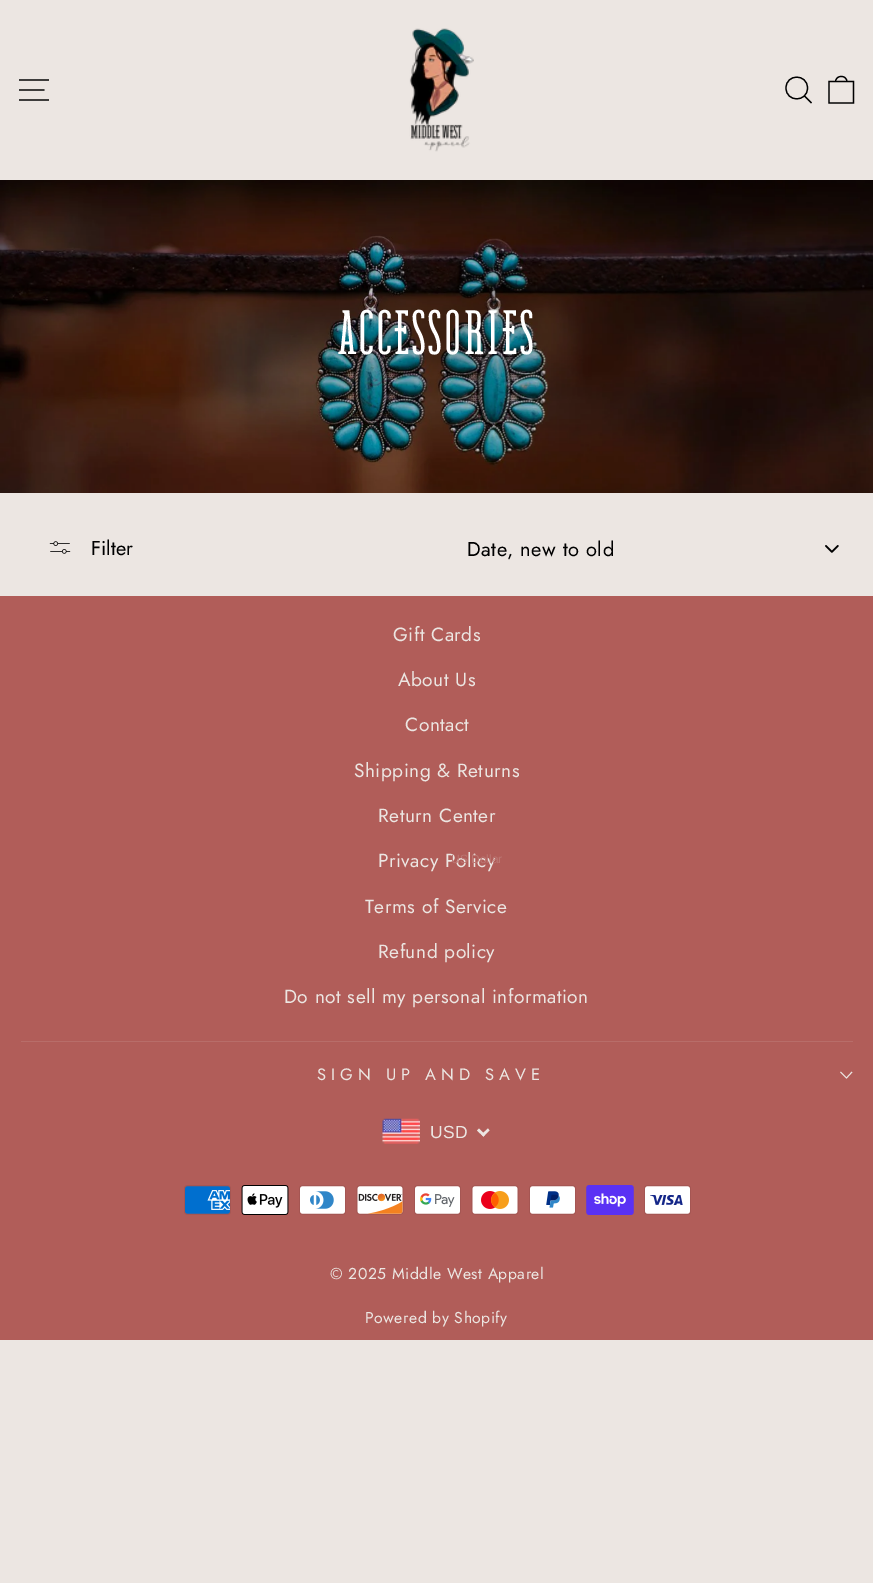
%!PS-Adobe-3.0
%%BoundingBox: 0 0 873 1583
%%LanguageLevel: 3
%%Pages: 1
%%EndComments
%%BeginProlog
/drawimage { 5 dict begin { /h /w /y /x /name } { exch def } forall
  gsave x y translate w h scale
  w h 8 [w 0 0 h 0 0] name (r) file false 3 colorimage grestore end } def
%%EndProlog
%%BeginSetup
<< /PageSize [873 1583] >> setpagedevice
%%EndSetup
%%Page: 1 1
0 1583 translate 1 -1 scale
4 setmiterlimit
0.925 0.902 0.886 setrgbcolor
0 0 873 1583 rectfill
0 setgray
1.2 setlinewidth
newpath 19 80 moveto 49 80 lineto 19 90 moveto 44.5 90 lineto 19 100 moveto 49 100 lineto stroke
(images/1.raw) 409 28 65 124 drawimage
newpath 807.5 88 moveto 807.5 102.5 786 102.5 786 88 curveto 786 73.5 807.5 73.5 807.5 88 curveto closepath 811.5 103 moveto 804.5 96 lineto stroke
newpath 829 81.5 moveto 853.5 81.5 lineto 853.5 103 lineto 829 103 lineto closepath 835.5 82 moveto 835.5 74.5 847 74.5 847 82 curveto stroke
(images/2.raw) 0 180 873 313 drawimage
(images/3.raw) 49 541 22 13 drawimage
(images/4.raw) 825 545 14 8 drawimage
0.694 0.365 0.349 setrgbcolor
0 596 873 744 rectfill
0.722 0.427 0.412 setrgbcolor
21 1041 832 1 rectfill
0.925 0.902 0.886 setrgbcolor
0.9 setlinewidth
newpath 840.5 1072 moveto 846.5 1078 lineto 852 1072 lineto stroke
(images/5.raw) 382 1118 38 26 drawimage
newpath 488 1128.5 moveto 489.5 1130.5 lineto 483.5 1136.5 lineto 481.5 1134.5 lineto closepath fill
newpath 479 1128.5 moveto 485 1134.5 lineto 483.5 1136.5 lineto 477 1130.5 lineto closepath fill
(images/6.raw) 184 1185 47 30 drawimage
(images/7.raw) 241 1185 48 30 drawimage
(images/8.raw) 299 1185 47 30 drawimage
(images/9.raw) 356 1185 48 30 drawimage
(images/10.raw) 414 1185 47 30 drawimage
(images/11.raw) 471 1185 48 30 drawimage
(images/12.raw) 529 1185 47 30 drawimage
(images/13.raw) 586 1185 48 30 drawimage
(images/14.raw) 644 1185 47 30 drawimage
/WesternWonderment-Regular [64 0 0 -64 0 0] selectfont
1 setgray
338 354 moveto 3.25 0 (ACCESSORIES) ashow
/Jost-Regular [20 0 0 -20 0 0] selectfont
0 setgray
91 555 moveto (Filter) show
467 556 moveto 0.5 0 (Date, new to old) ashow
/Jost-Regular [19.1 0 0 -19.1 0 0] selectfont
0.925 0.902 0.886 setrgbcolor
393 641 moveto 0.5 0 (Gift Cards) ashow
398 686 moveto 0.5 0 (About Us) ashow
405 731 moveto 0.5 0 (Contact) ashow
354 777 moveto 0.5 0 (Shipping & Returns) ashow
378 822 moveto 0.5 0 (Return Center) ashow
378 867 moveto 0.5 0 (Privacy Policy) ashow
365 913 moveto 0.5 0 (Terms of Service) ashow
378 958 moveto 0.5 0 (Refund policy) ashow
284 1003 moveto 0.5 0 (Do not sell my personal information) ashow
/Jost-Regular [16.5 0 0 -16.5 0 0] selectfont
317 1080 moveto 5 0 (SIGN UP AND SAVE) ashow
/LiberationSans-Regular [12 0 0 -12 0 0] selectfont
0.737 0.467 0.451 setrgbcolor
451 863 moveto (US Dollar) show
/LiberationSans-Regular [17.5 0 0 -17.5 0 0] selectfont
0.925 0.902 0.886 setrgbcolor
430 1138 moveto 0.5 0 (USD) ashow
/Jost-Regular [15.75 0 0 -15.75 0 0] selectfont
330 1279 moveto 0.5 0 (© 2025 Middle West Apparel) ashow
365 1323 moveto 0.5 0 (Powered by Shopify) ashow
showpage
%%EOF
